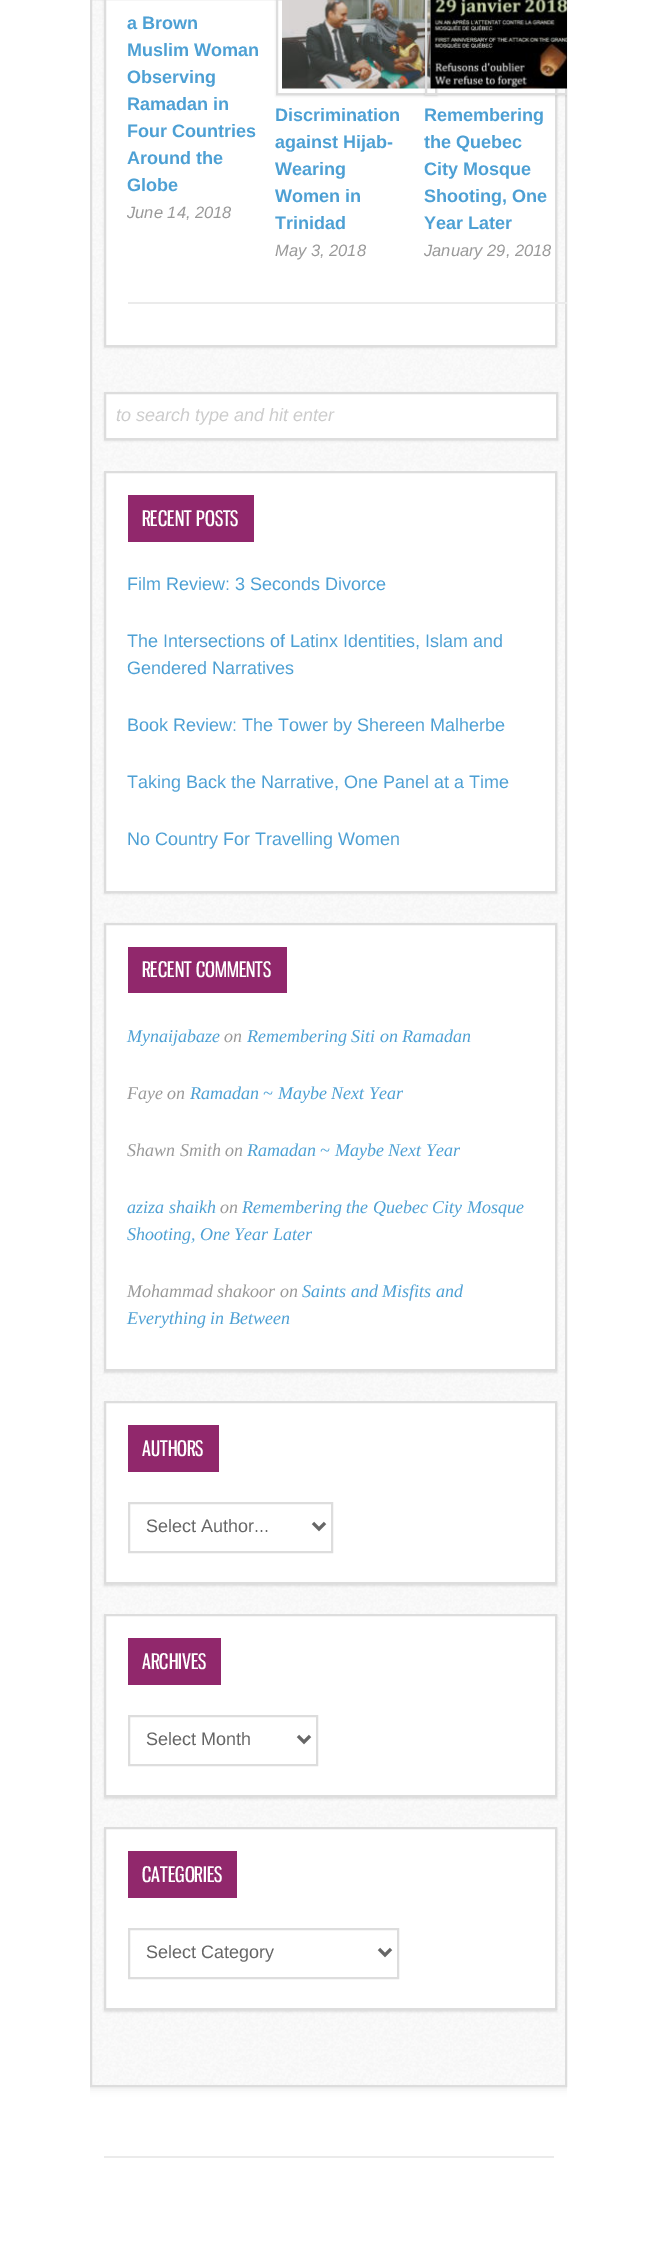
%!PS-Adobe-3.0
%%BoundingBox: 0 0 655 2261
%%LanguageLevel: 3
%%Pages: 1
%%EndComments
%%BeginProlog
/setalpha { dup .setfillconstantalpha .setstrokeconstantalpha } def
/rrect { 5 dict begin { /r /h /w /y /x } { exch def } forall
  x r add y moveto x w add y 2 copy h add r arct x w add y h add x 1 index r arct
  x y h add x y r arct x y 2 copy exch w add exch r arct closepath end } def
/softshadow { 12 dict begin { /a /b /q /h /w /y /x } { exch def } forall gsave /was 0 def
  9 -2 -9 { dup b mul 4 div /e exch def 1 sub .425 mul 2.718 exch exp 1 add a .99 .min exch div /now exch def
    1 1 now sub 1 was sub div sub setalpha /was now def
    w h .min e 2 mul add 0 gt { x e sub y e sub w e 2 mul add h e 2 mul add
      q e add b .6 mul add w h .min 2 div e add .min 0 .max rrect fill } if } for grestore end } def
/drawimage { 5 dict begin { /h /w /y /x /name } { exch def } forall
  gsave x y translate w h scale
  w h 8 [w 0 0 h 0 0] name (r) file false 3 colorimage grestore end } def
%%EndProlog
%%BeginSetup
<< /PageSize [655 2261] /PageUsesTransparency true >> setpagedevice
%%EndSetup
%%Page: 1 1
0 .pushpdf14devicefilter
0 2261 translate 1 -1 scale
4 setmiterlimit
1 setgray
0 0 655 2261 rectfill
gsave
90 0 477 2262 rectclip
0 setgray
90 -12 477 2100 0 4 0.1 softshadow
grestore
(images/1.raw) 92 0 473 2085 drawimage
0.867 setgray
2 setlinewidth
91 -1 475 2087 rectstroke
0 setgray
104 -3 453 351 0 1 0.1 softshadow
1 setgray
newpath 105 -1 moveto 556 -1 lineto 556 346 lineto 105 346 lineto closepath gsave fill grestore
0.867 setgray
stroke
0.922 setgray
128 302 439 2 rectfill
gsave
newpath 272 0 moveto 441 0 lineto 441 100 lineto 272 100 lineto closepath 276 -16 moveto 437 -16 lineto 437 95 lineto 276 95 lineto closepath eoclip newpath
0 setgray
276 -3 161 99 0 1 0.1 softshadow
grestore
0.867 setgray
277 -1 159 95 rectstroke
(images/2.raw) 282 0 149 89 drawimage
gsave
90 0 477 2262 rectclip
newpath 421 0 moveto 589 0 lineto 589 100 lineto 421 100 lineto closepath 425 -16 moveto 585 -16 lineto 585 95 lineto 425 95 lineto closepath eoclip newpath
0 setgray
425 -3 160 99 0 1 0.1 softshadow
grestore
gsave
90 0 477 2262 rectclip
426 -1 158 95 rectstroke
grestore
(images/3.raw) 430 0 137 89 drawimage
0 setgray
104 393 454 48 0 1 0.1 softshadow
1 setgray
newpath 105 393 moveto 557 393 lineto 557 439 lineto 105 439 lineto closepath gsave fill grestore
0.867 setgray
stroke
0 setgray
104 473 453 421 0 1 0.1 softshadow
1 setgray
newpath 105 472 moveto 556 472 lineto 556 892 lineto 105 892 lineto closepath gsave fill grestore
0.867 setgray
stroke
0.569 0.157 0.424 setrgbcolor
128 495 126 47 rectfill
0 setgray
104 924 453 449 0 1 0.1 softshadow
1 setgray
newpath 105 924 moveto 556 924 lineto 556 1370 lineto 105 1370 lineto closepath gsave fill grestore
0.867 setgray
stroke
0.569 0.157 0.424 setrgbcolor
128 947 159 46 rectfill
0 setgray
104 1403 453 183 0 1 0.1 softshadow
1 setgray
newpath 105 1402 moveto 556 1402 lineto 556 1583 lineto 105 1583 lineto closepath gsave fill grestore
0.867 setgray
stroke
0.569 0.157 0.424 setrgbcolor
128 1425 91 47 rectfill
0.867 setgray
129 1503 203 49 rectstroke
0.4 setgray
3 setlinewidth
newpath 313 1523 moveto 319 1529 lineto 325 1523 lineto stroke
0 setgray
104 1616 453 183 0 1 0.1 softshadow
1 setgray
newpath 105 1615 moveto 556 1615 lineto 556 1796 lineto 105 1796 lineto closepath gsave fill grestore
0.867 setgray
2 setlinewidth
stroke
0.569 0.157 0.424 setrgbcolor
128 1638 93 47 rectfill
0.867 setgray
129 1716 188 49 rectstroke
0.4 setgray
3 setlinewidth
newpath 298 1736 moveto 304 1742 lineto 310 1736 lineto stroke
0 setgray
104 1829 453 183 0 1 0.1 softshadow
1 setgray
newpath 105 1828 moveto 556 1828 lineto 556 2009 lineto 105 2009 lineto closepath gsave fill grestore
0.867 setgray
2 setlinewidth
stroke
0.569 0.157 0.424 setrgbcolor
128 1851 109 47 rectfill
0.867 setgray
129 1929 269 49 rectstroke
0.4 setgray
3 setlinewidth
newpath 379 1949 moveto 385 1955 lineto 391 1949 lineto stroke
0.922 setgray
104 2156 450 2 rectfill
/LiberationSans-Bold [18 0 0 -18 0 0] selectfont
0.302 0.627 0.831 setrgbcolor
127 29 moveto (a Brown) show
127 56 moveto (Muslim Woman) show
127 83 moveto (Observing) show
127 110 moveto (Ramadan in) show
127 137 moveto (Four Countries) show
127 164 moveto (Around the) show
127 191 moveto (Globe) show
/LiberationSans-Italic [16.5 0 0 -16.5 0 0] selectfont
0.6 setgray
127 218 moveto (June 14, 2018) show
/LiberationSans-Bold [18 0 0 -18 0 0] selectfont
0.302 0.627 0.831 setrgbcolor
275 121 moveto (Discrimination) show
275 148 moveto (against Hijab-) show
275 175 moveto (Wearing) show
275 202 moveto (Women in) show
275 229 moveto (Trinidad) show
/LiberationSans-Italic [16.5 0 0 -16.5 0 0] selectfont
0.6 setgray
275 256 moveto (May 3, 2018) show
/LiberationSans-Bold [18 0 0 -18 0 0] selectfont
0.302 0.627 0.831 setrgbcolor
424 121 moveto (Remembering) show
424 148 moveto (the Quebec) show
424 175 moveto (City Mosque) show
424 202 moveto (Shooting, One) show
424 229 moveto (Year Later) show
/LiberationSans-Italic [16.5 0 0 -16.5 0 0] selectfont
0.6 setgray
424 256 moveto (January 29, 2018) show
/LiberationSans-Italic [18 0 0 -18 0 0] selectfont
0.8 setgray
116 421 moveto (to search type and hit enter) show
/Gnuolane-Regular [21 0 0 -21 0 0] selectfont
1 setgray
142 526 moveto (RECENT POSTS) show
/LiberationSans-Regular [18 0 0 -18 0 0] selectfont
0.302 0.627 0.831 setrgbcolor
127 590 moveto (Film Review: 3 Seconds Divorce) show
127 647 moveto (The Intersections of Latinx Identities, Islam and) show
127 674 moveto (Gendered Narratives) show
127 731 moveto (Book Review: The Tower by Shereen Malherbe) show
127 788 moveto (Taking Back the Narrative, One Panel at a Time) show
127 845 moveto (No Country For Travelling Women) show
/Gnuolane-Regular [21 0 0 -21 0 0] selectfont
1 setgray
142 977 moveto (RECENT COMMENTS) show
/LiberationSerif-Italic [18 0 0 -18 0 0] selectfont
0.302 0.627 0.831 setrgbcolor
127 1042 moveto (Mynaijabaze) show
0.6 setgray
224 1042 moveto (on) show
0.302 0.627 0.831 setrgbcolor
247 1042 moveto (Remembering Siti on Ramadan) show
0.6 setgray
127 1099 moveto (Faye on) show
0.302 0.627 0.831 setrgbcolor
190 1099 moveto (Ramadan ~ Maybe Next Year) show
0.6 setgray
127 1156 moveto (Shawn Smith on) show
0.302 0.627 0.831 setrgbcolor
247 1156 moveto (Ramadan ~ Maybe Next Year) show
127 1213 moveto (aziza shaikh) show
0.6 setgray
220 1213 moveto (on) show
0.302 0.627 0.831 setrgbcolor
242 1213 moveto (Remembering the Quebec City Mosque) show
127 1240 moveto (Shooting, One Year Later) show
0.6 setgray
127 1297 moveto (Mohammad shakoor on) show
0.302 0.627 0.831 setrgbcolor
302 1297 moveto (Saints and Misfits and) show
127 1324 moveto (Everything in Between) show
/Gnuolane-Regular [21 0 0 -21 0 0] selectfont
1 setgray
142 1456 moveto (AUTHORS) show
/LiberationSans-Regular [18 0 0 -18 0 0] selectfont
0.4 setgray
146 1532 moveto (Select Author...) show
/Gnuolane-Regular [21 0 0 -21 0 0] selectfont
1 setgray
142 1669 moveto (ARCHIVES) show
/LiberationSans-Regular [18 0 0 -18 0 0] selectfont
0.4 setgray
146 1745 moveto (Select Month) show
/Gnuolane-Regular [21 0 0 -21 0 0] selectfont
1 setgray
142 1882 moveto (CATEGORIES) show
/LiberationSans-Regular [18 0 0 -18 0 0] selectfont
0.4 setgray
146 1958 moveto (Select Category) show
.poppdf14devicefilter showpage
%%EOF
